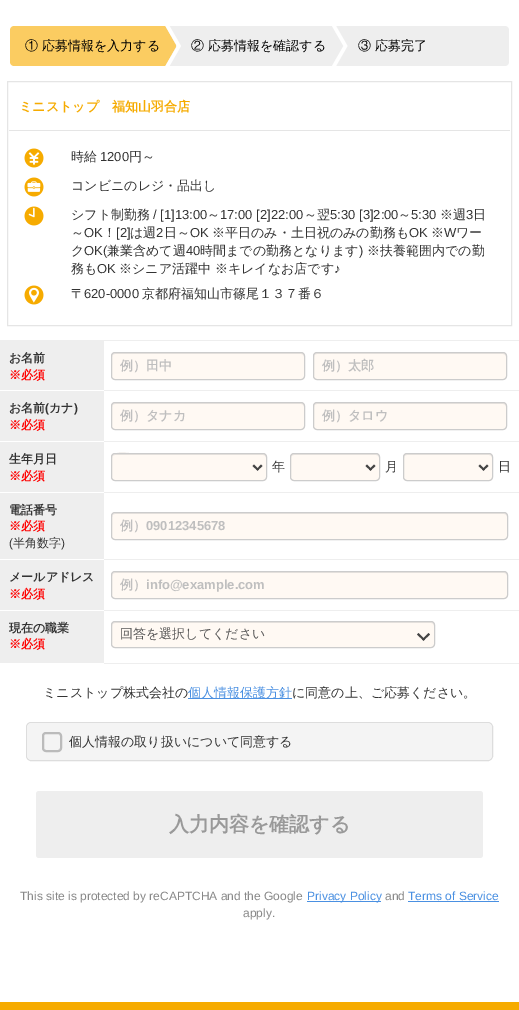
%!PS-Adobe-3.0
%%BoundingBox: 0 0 519 1010
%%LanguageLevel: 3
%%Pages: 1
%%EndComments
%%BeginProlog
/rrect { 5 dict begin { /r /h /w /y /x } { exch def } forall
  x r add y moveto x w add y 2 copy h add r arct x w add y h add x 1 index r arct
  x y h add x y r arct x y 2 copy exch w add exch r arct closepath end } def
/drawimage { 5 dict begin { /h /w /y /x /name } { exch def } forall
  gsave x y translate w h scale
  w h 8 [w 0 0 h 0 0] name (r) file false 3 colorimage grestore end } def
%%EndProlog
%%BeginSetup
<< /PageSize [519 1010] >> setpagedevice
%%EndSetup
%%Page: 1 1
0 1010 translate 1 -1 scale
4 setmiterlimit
1 setgray
0 0 519 1010 rectfill
0.984 0.8 0.38 setrgbcolor
newpath 14 26 moveto 176 26 lineto 176 66 lineto 14 66 lineto 12 66 10 64 10 62 curveto 10 30 lineto 10 28 12 26 14 26 curveto closepath fill
0.933 setgray
176 26 167 40 rectfill
newpath 165.5 26 moveto 179.5 26 lineto 191 46 lineto 177 46 lineto closepath fill
1 setgray
newpath 165.5 26 moveto 169.5 26 lineto 181 46 lineto 177 46 lineto closepath fill
0.933 setgray
newpath 177 46 moveto 191 46 lineto 179.5 66 lineto 165.5 66 lineto closepath fill
1 setgray
newpath 177 46 moveto 181 46 lineto 169.5 66 lineto 165.5 66 lineto closepath fill
0.933 setgray
newpath 343 26 moveto 505 26 lineto 507 26 509 28 509 30 curveto 509 62 lineto 509 64 507 66 505 66 curveto 343 66 lineto closepath fill
1 setgray
newpath 343.5 46 moveto 347.5 46 lineto 336 66 lineto 332 66 lineto closepath fill
0.898 setgray
7.5 81.5 504 244 rectstroke
9 130 501 1 rectfill
(images/1.raw) 24 148 20 20 drawimage
(images/2.raw) 24 177 20 20 drawimage
(images/3.raw) 24 206 20 20 drawimage
(images/4.raw) 24 285 20 20 drawimage
0.933 setgray
0 340 519 1 rectfill
0 341 104 49 rectfill
103 390 416 1 rectfill
1 setgray
103 390 1 1 rectfill
1 0.976 0.953 setrgbcolor
111 352 194 28 4 rrect fill
0.925 0.902 0.882 setrgbcolor
newpath 115 354 moveto 301 354 lineto 303 354 304 355 304 357 curveto 304 355 303 353 301 353 curveto 115 353 lineto 113 353 112 355 112 357 curveto 112 355 113 354 115 354 curveto closepath fill
0.8 setgray
111.5 352.5 193 27 3.5 rrect stroke
1 0.976 0.953 setrgbcolor
313 352 194 28 4 rrect fill
0.925 0.902 0.882 setrgbcolor
newpath 317 354 moveto 503 354 lineto 505 354 506 355 506 357 curveto 506 355 505 353 503 353 curveto 317 353 lineto 315 353 314 355 314 357 curveto 314 355 315 354 317 354 curveto closepath fill
0.8 setgray
313.5 352.5 193 27 3.5 rrect stroke
0.933 setgray
0 391 104 50 rectfill
103 441 416 1 rectfill
1 setgray
103 441 1 1 rectfill
1 0.976 0.953 setrgbcolor
111 402 194 28 4 rrect fill
0.925 0.902 0.882 setrgbcolor
newpath 115 404 moveto 301 404 lineto 303 404 304 405 304 407 curveto 304 405 303 403 301 403 curveto 115 403 lineto 113 403 112 405 112 407 curveto 112 405 113 404 115 404 curveto closepath fill
0.8 setgray
111.5 402.5 193 27 3.5 rrect stroke
1 0.976 0.953 setrgbcolor
313 402 194 28 4 rrect fill
0.925 0.902 0.882 setrgbcolor
newpath 317 404 moveto 503 404 lineto 505 404 506 405 506 407 curveto 506 405 505 403 503 403 curveto 317 403 lineto 315 403 314 405 314 407 curveto 314 405 315 404 317 404 curveto closepath fill
0.8 setgray
313.5 402.5 193 27 3.5 rrect stroke
0.933 setgray
0 442 104 50 rectfill
103 492 416 1 rectfill
1 setgray
103 492 1 1 rectfill
1 0.976 0.953 setrgbcolor
111 453 156 28 4 rrect fill
0.925 0.902 0.882 setrgbcolor
newpath 115 455 moveto 263 455 lineto 265 455 266 456 266 458 curveto 266 456 266 455 264 454 curveto 140 454 lineto 132 454 112 449 112 458 curveto 112 456 113 455 115 455 curveto closepath fill
0.8 setgray
111.5 453.5 155 27 3.5 rrect stroke
0.267 setgray
newpath 262.5 466 moveto 257.5 470.5 lineto 256.5 469.5 lineto 261 464.5 lineto closepath fill
newpath 259 469.5 moveto 257.5 470.5 lineto 252.5 466 lineto 254 464.5 lineto closepath fill
1 0.976 0.953 setrgbcolor
290 453 90 28 4 rrect fill
0.925 0.902 0.882 setrgbcolor
newpath 294 455 moveto 376 455 lineto 378 455 379 456 379 458 curveto 379 450 366 454 362 454 curveto 308 454 lineto 304 454 291 450 291 458 curveto 291 456 292 455 294 455 curveto closepath fill
0.8 setgray
290.5 453.5 89 27 3.5 rrect stroke
0.267 setgray
newpath 375.5 466 moveto 370.5 470.5 lineto 369 469.5 lineto 374 464.5 lineto closepath fill
newpath 372 469.5 moveto 370.5 470.5 lineto 365.5 466 lineto 367 464.5 lineto closepath fill
1 0.976 0.953 setrgbcolor
403 453 90 28 4 rrect fill
0.925 0.902 0.882 setrgbcolor
newpath 407 455 moveto 489 455 lineto 491 455 492 456 492 458 curveto 492 450 479 454 475 454 curveto 421 454 lineto 417 454 404 450 404 458 curveto 404 456 405 455 407 455 curveto closepath fill
0.8 setgray
403.5 453.5 89 27 3.5 rrect stroke
0.267 setgray
newpath 488.5 466 moveto 483.5 470.5 lineto 482 469.5 lineto 487 464.5 lineto closepath fill
newpath 485 469.5 moveto 483.5 470.5 lineto 478.5 466 lineto 480 464.5 lineto closepath fill
0.933 setgray
0 493 104 66 rectfill
103 559 416 1 rectfill
1 setgray
103 559 1 1 rectfill
1 0.976 0.953 setrgbcolor
111 512 397 28 4 rrect fill
0.925 0.902 0.882 setrgbcolor
newpath 115 514 moveto 504 514 lineto 506 514 507 515 507 517 curveto 507 515 506 513 504 513 curveto 115 513 lineto 113 514 lineto 112 517 lineto 112 515 113 514 115 514 curveto closepath fill
0.8 setgray
111.5 512.5 396 27 3.5 rrect stroke
0.933 setgray
0 560 104 50 rectfill
103 610 416 1 rectfill
1 setgray
103 610 1 1 rectfill
1 0.976 0.953 setrgbcolor
111 571 397 28 4 rrect fill
0.925 0.902 0.882 setrgbcolor
newpath 115 573 moveto 504 573 lineto 506 573 507 574 507 576 curveto 507 574 506 572 504 572 curveto 115 572 lineto 113 573 lineto 112 576 lineto 112 574 113 573 115 573 curveto closepath fill
0.8 setgray
111.5 571.5 396 27 3.5 rrect stroke
0.933 setgray
0 611 104 52 rectfill
103 663 416 1 rectfill
1 setgray
103 663 1 1 rectfill
1 0.976 0.953 setrgbcolor
111 621 324 27 4 rrect fill
0.925 0.902 0.882 setrgbcolor
newpath 115 623 moveto 431 623 lineto 433 623 434 624 434 626 curveto 434 624 433 622 431 622 curveto 115 622 lineto 113 622 112 624 112 626 curveto 112 624 113 623 115 623 curveto closepath fill
0.8 setgray
111.5 621.5 323 26 3.5 rrect stroke
0.267 setgray
newpath 430 634.5 moveto 423.5 640.5 lineto 422 639.5 lineto 428.5 633 lineto closepath fill
newpath 425 639.5 moveto 423.5 640.5 lineto 417 634.5 lineto 418.5 633 lineto closepath fill
0.29 0.565 0.886 setrgbcolor
188 698 104 1 rectfill
0.867 setgray
26.5 722.5 466 38 4.5 rrect stroke
0.957 setgray
27 723 465 37 5 rrect fill
0.733 setgray
2 setlinewidth
43 733 18 18 3 rrect stroke
0.933 setgray
36 791 447 67 3 rrect fill
0.29 0.565 0.886 setrgbcolor
307 901 74 1 rectfill
408 901 91 1 rectfill
0.965 0.671 0 setrgbcolor
0 1002 519 8 rectfill
/WenQuanYiZenHei-Medium [13 0 0 -13 0 0] selectfont
0 setgray
25 50 moveto (① 応募情報を入力する) show
191 50 moveto (② 応募情報を確認する) show
358 50 moveto (③ 応募完了) show
0.933 setgray
newpath 332 26 moveto 346 26 lineto 357.5 46 lineto 343.5 46 lineto closepath fill
1 setgray
newpath 332 26 moveto 336 26 lineto 347.5 46 lineto 343.5 46 lineto closepath fill
/WenQuanYiZenHei-Bold [13 0 0 -13 0 0] selectfont
0.965 0.671 0 setrgbcolor
19 111 moveto (ミニストップ　福知山羽合店) show
/WenQuanYiZenHei-Medium [13 0 0 -13 0 0] selectfont
0.2 setgray
71 161 moveto (時給) show
/LiberationSans-Regular [13 0 0 -13 0 0] selectfont
100 161 moveto (1200) show
/WenQuanYiZenHei-Medium [13 0 0 -13 0 0] selectfont
129 161 moveto (円～) show
71 190 moveto (コンビニのレジ・品出し) show
71 219 moveto (シフト制勤務) show
/LiberationSans-Regular [13 0 0 -13 0 0] selectfont
153 219 moveto (/ [1]13:00) show
/WenQuanYiZenHei-Medium [13 0 0 -13 0 0] selectfont
207 219 moveto (～) show
/LiberationSans-Regular [13 0 0 -13 0 0] selectfont
220 219 moveto (17:00 [2]22:00) show
/WenQuanYiZenHei-Medium [13 0 0 -13 0 0] selectfont
304 219 moveto (～翌) show
/LiberationSans-Regular [13 0 0 -13 0 0] selectfont
330 219 moveto (5:30 [3]2:00) show
/WenQuanYiZenHei-Medium [13 0 0 -13 0 0] selectfont
398 219 moveto (～) show
/LiberationSans-Regular [13 0 0 -13 0 0] selectfont
411 219 moveto (5:30) show
/WenQuanYiZenHei-Medium [13 0 0 -13 0 0] selectfont
440 219 moveto (※週) show
/LiberationSans-Regular [13 0 0 -13 0 0] selectfont
466 219 moveto (3) show
/WenQuanYiZenHei-Medium [13 0 0 -13 0 0] selectfont
473 219 moveto (日) show
71 237 moveto (～) show
/LiberationSans-Regular [13 0 0 -13 0 0] selectfont
84 237 moveto (OK) show
/WenQuanYiZenHei-Medium [13 0 0 -13 0 0] selectfont
103 237 moveto (！) show
/LiberationSans-Regular [13 0 0 -13 0 0] selectfont
116 237 moveto ([2]) show
/WenQuanYiZenHei-Medium [13 0 0 -13 0 0] selectfont
130 237 moveto (は週) show
/LiberationSans-Regular [13 0 0 -13 0 0] selectfont
156 237 moveto (2) show
/WenQuanYiZenHei-Medium [13 0 0 -13 0 0] selectfont
164 237 moveto (日～) show
/LiberationSans-Regular [13 0 0 -13 0 0] selectfont
190 237 moveto (OK) show
/WenQuanYiZenHei-Medium [13 0 0 -13 0 0] selectfont
212 237 moveto (※平日のみ・土日祝のみの勤務も) show
/LiberationSans-Regular [13 0 0 -13 0 0] selectfont
409 237 moveto (OK) show
/WenQuanYiZenHei-Medium [13 0 0 -13 0 0] selectfont
431 237 moveto (※) show
/LiberationSans-Regular [13 0 0 -13 0 0] selectfont
444 237 moveto (W) show
/WenQuanYiZenHei-Medium [13 0 0 -13 0 0] selectfont
456 237 moveto (ワー) show
71 255 moveto (ク) show
/LiberationSans-Regular [13 0 0 -13 0 0] selectfont
84 255 moveto (OK\() show
/WenQuanYiZenHei-Medium [13 0 0 -13 0 0] selectfont
107 255 moveto (兼業含めて週) show
/LiberationSans-Regular [13 0 0 -13 0 0] selectfont
186 255 moveto (40) show
/WenQuanYiZenHei-Medium [13 0 0 -13 0 0] selectfont
200 255 moveto (時間までの勤務となります) show
/LiberationSans-Regular [13 0 0 -13 0 0] selectfont
359 255 moveto (\)) show
/WenQuanYiZenHei-Medium [13 0 0 -13 0 0] selectfont
367 255 moveto (※扶養範囲内での勤) show
71 273 moveto (務も) show
/LiberationSans-Regular [13 0 0 -13 0 0] selectfont
97 273 moveto (OK) show
/WenQuanYiZenHei-Medium [13 0 0 -13 0 0] selectfont
119 273 moveto (※シニア活躍中 ※キレイなお店です) show
/LiberationSans-Regular [13 0 0 -13 0 0] selectfont
334 273 moveto (♪) show
/WenQuanYiZenHei-Medium [13 0 0 -13 0 0] selectfont
71 298 moveto (〒) show
/LiberationSans-Regular [13 0 0 -13 0 0] selectfont
84 298 moveto (620-0000) show
/WenQuanYiZenHei-Medium [13 0 0 -13 0 0] selectfont
142 298 moveto (京都府福知山市篠尾１３７番６) show
/WenQuanYiZenHei-Bold [12 0 0 -12 0 0] selectfont
9 362 moveto (お名前) show
1 0 0 setrgbcolor
9 379 moveto (※必須) show
/WenQuanYiZenHei-Bold [13 0 0 -13 0 0] selectfont
0.749 setgray
120 370 moveto (例）田中) show
322 370 moveto (例）太郎) show
/WenQuanYiZenHei-Bold [12 0 0 -12 0 0] selectfont
0.2 setgray
9 412 moveto (お名前) show
/LiberationSans-Bold [12 0 0 -12 0 0] selectfont
45 412 moveto (\() show
/WenQuanYiZenHei-Bold [12 0 0 -12 0 0] selectfont
49 412 moveto (カナ) show
/LiberationSans-Bold [12 0 0 -12 0 0] selectfont
74 412 moveto (\)) show
/WenQuanYiZenHei-Bold [12 0 0 -12 0 0] selectfont
1 0 0 setrgbcolor
9 429 moveto (※必須) show
/WenQuanYiZenHei-Bold [13 0 0 -13 0 0] selectfont
0.749 setgray
120 420 moveto (例）タナカ) show
322 420 moveto (例）タロウ) show
/WenQuanYiZenHei-Bold [12 0 0 -12 0 0] selectfont
0.2 setgray
9 463 moveto (生年月日) show
1 0 0 setrgbcolor
9 480 moveto (※必須) show
/WenQuanYiZenHei-Medium [13 0 0 -13 0 0] selectfont
0.2 setgray
272 471 moveto (年) show
385 471 moveto (月) show
498 471 moveto (日) show
/WenQuanYiZenHei-Bold [12 0 0 -12 0 0] selectfont
9 514 moveto (電話番号) show
1 0 0 setrgbcolor
9 530 moveto (※必須) show
/LiberationSans-Regular [12 0 0 -12 0 0] selectfont
0.2 setgray
9 547 moveto (\() show
/WenQuanYiZenHei-Medium [12 0 0 -12 0 0] selectfont
13 547 moveto (半角数字) show
/LiberationSans-Regular [12 0 0 -12 0 0] selectfont
61 547 moveto (\)) show
/WenQuanYiZenHei-Bold [13 0 0 -13 0 0] selectfont
0.749 setgray
120 530 moveto (例）) show
/LiberationSans-Bold [13 0 0 -13 0 0] selectfont
146 530 moveto (09012345678) show
/WenQuanYiZenHei-Bold [12 0 0 -12 0 0] selectfont
0.2 setgray
9 581 moveto (メールアドレス) show
1 0 0 setrgbcolor
9 598 moveto (※必須) show
/WenQuanYiZenHei-Bold [13 0 0 -13 0 0] selectfont
0.749 setgray
120 589 moveto (例）) show
/LiberationSans-Bold [13 0 0 -13 0 0] selectfont
146 589 moveto (info@example.com) show
/WenQuanYiZenHei-Bold [12 0 0 -12 0 0] selectfont
0.2 setgray
9 632 moveto (現在の職業) show
1 0 0 setrgbcolor
9 648 moveto (※必須) show
/WenQuanYiZenHei-Medium [13 0 0 -13 0 0] selectfont
0.333 setgray
120 638 moveto (回答を選択してください) show
0.2 setgray
43 697 moveto (ミニストップ株式会社の) show
0.29 0.565 0.886 setrgbcolor
188 697 moveto (個人情報保護方針) show
0.2 setgray
292 697 moveto (に同意の上、ご応募ください。) show
69 746 moveto (個人情報の取り扱いについて同意する) show
/WenQuanYiZenHei-Bold [20 0 0 -20 0 0] selectfont
0.6 setgray
169 831 moveto (入力内容を確認する) show
/LiberationSans-Regular [12 0 0 -12 0 0] selectfont
0.533 setgray
20 900 moveto (This site is protected by reCAPTCHA and the Google) show
0.29 0.565 0.886 setrgbcolor
307 900 moveto (Privacy Policy) show
0.533 setgray
385 900 moveto (and) show
0.29 0.565 0.886 setrgbcolor
408 900 moveto (Terms of Service) show
0.533 setgray
243 917 moveto (apply.) show
showpage
%%EOF
